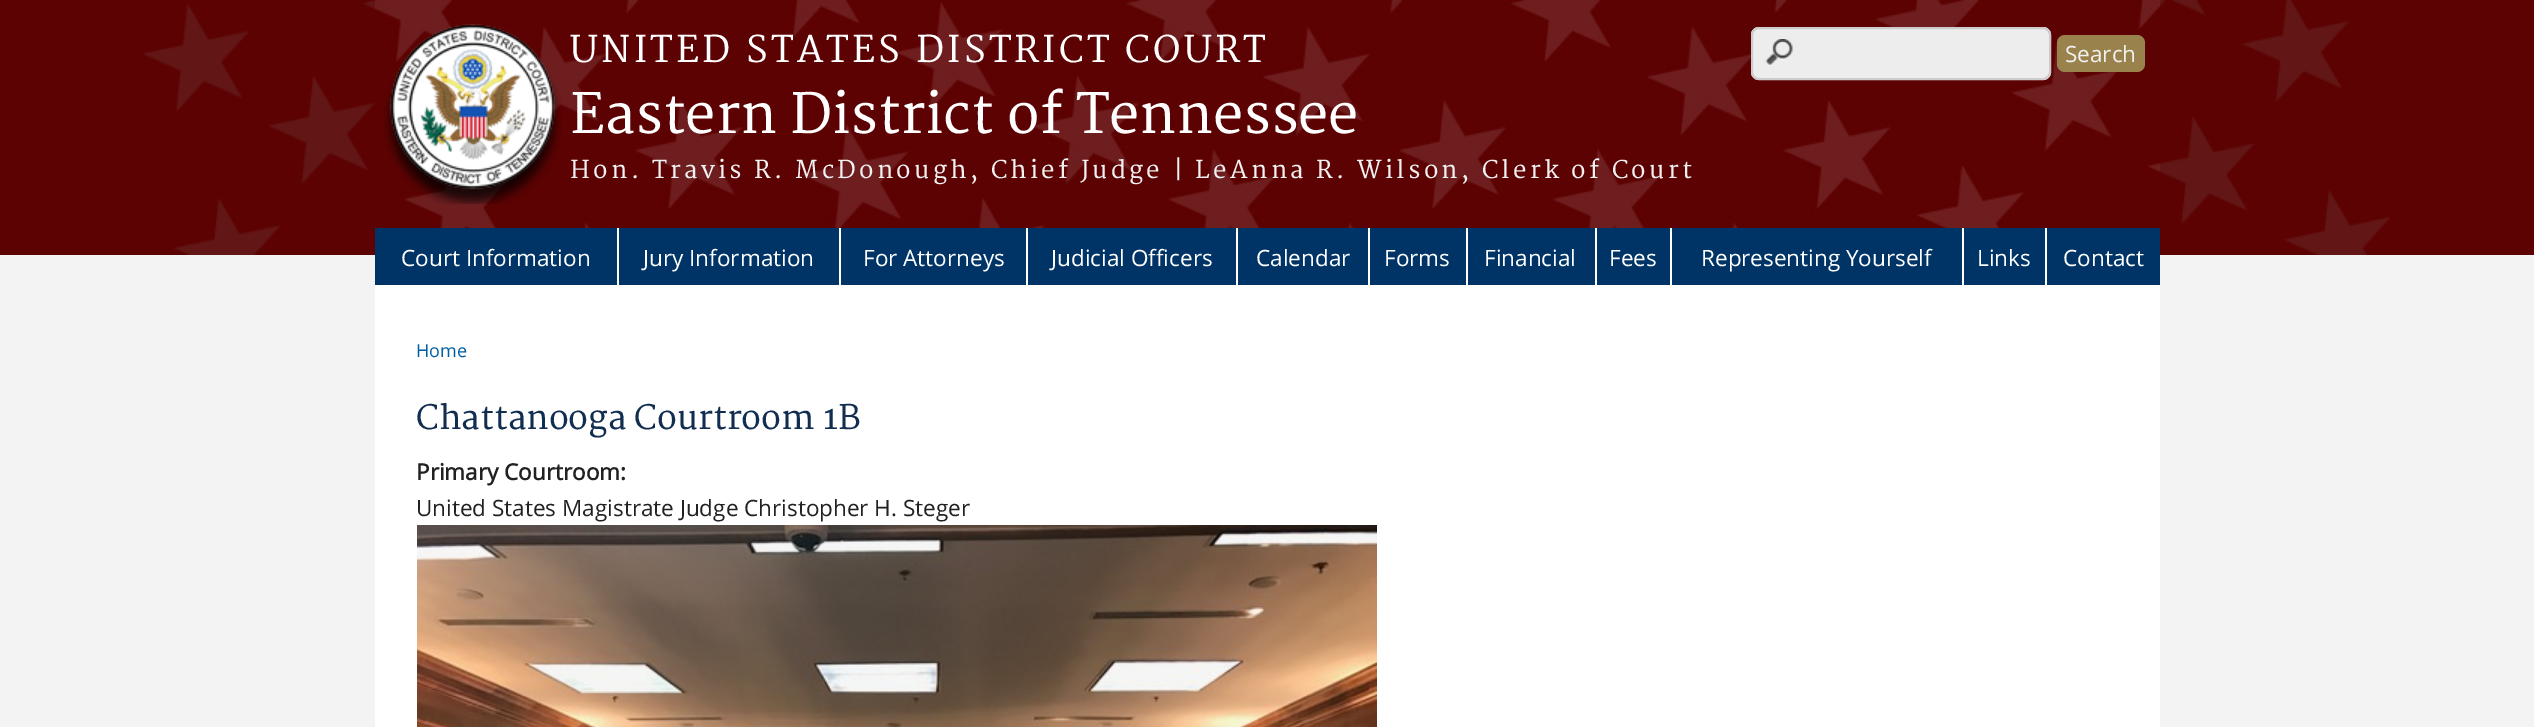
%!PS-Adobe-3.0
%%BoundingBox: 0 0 2534 727
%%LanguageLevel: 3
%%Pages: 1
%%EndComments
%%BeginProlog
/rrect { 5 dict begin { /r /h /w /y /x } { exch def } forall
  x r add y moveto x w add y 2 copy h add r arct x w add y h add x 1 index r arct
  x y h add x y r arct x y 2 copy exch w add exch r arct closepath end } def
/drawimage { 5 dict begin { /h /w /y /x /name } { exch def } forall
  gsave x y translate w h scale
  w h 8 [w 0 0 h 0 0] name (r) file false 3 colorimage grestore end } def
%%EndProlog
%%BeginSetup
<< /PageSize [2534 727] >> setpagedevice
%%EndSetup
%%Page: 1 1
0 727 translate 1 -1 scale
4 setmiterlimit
0.953 setgray
0 0 2534 727 rectfill
0.361 0.008 0.008 setrgbcolor
0 0 2534 255 rectfill
(images/1.raw) 143 0 2247 255 drawimage
1 setgray
375 285 1785 442 rectfill
(images/2.raw) 375 0 1785 228 drawimage
(images/3.raw) 383 24 179 181 drawimage
0.929 setgray
1751 27 300 53 8 rrect fill
(images/4.raw) 1765 39 28 27 drawimage
0.8 setgray
2 setlinewidth
1752 28 298 51 7 rrect stroke
0.6 0.51 0.294 setrgbcolor
2057 35 88 37 8 rrect fill
0 0.2 0.4 setrgbcolor
375 228 1785 57 rectfill
1 setgray
617 228 2 57 rectfill
839 228 2 57 rectfill
1026 228 2 57 rectfill
1236 228 2 57 rectfill
1368 228 2 57 rectfill
1466 228 2 57 rectfill
1595 228 2 57 rectfill
1670 228 2 57 rectfill
1962 228 2 57 rectfill
2045 228 2 57 rectfill
(images/5.raw) 417 525 960 202 drawimage
/Merriweather-Regular [36 0 0 -36 0 0] selectfont
570 62 moveto 3.3 0 (UNITED STATES DISTRICT COURT) ashow
/Merriweather-Regular [54 0 0 -54 0 0] selectfont
570 133 moveto (Eastern District of Tennessee) show
/Merriweather-Regular [24 0 0 -24 0 0] selectfont
0.945 setgray
570 178 moveto 3.3 0 (Hon. Travis R. McDonough, Chief Judge | LeAnna R. Wilson, Clerk of Court) ashow
/OpenSans-Regular [22.5 0 0 -22.5 0 0] selectfont
2065 62 moveto (Search) show
1 setgray
401 266 moveto (Court Information) show
643 266 moveto (Jury Information) show
863 266 moveto (For Attorneys) show
1051 266 moveto (Judicial Officers) show
1256 266 moveto (Calendar) show
1384 266 moveto (Forms) show
1484 266 moveto (Financial) show
1609 266 moveto (Fees) show
1701 266 moveto (Representing Yourself) show
1977 266 moveto (Links) show
2063 266 moveto (Contact) show
/OpenSans-Regular [18 0 0 -18 0 0] selectfont
0 0.369 0.635 setrgbcolor
416 357 moveto (Home) show
/Merriweather-Regular [33 0 0 -33 0 0] selectfont
0.067 0.18 0.318 setrgbcolor
416 429 moveto (Chattanooga Courtroom 1B) show
/OpenSans-Bold [22.5 0 0 -22.5 0 0] selectfont
0.129 setgray
416 480 moveto (Primary Courtroom:) show
/OpenSans-Regular [22.5 0 0 -22.5 0 0] selectfont
416 516 moveto (United States Magistrate Judge Christopher H. Steger) show
showpage
%%EOF
